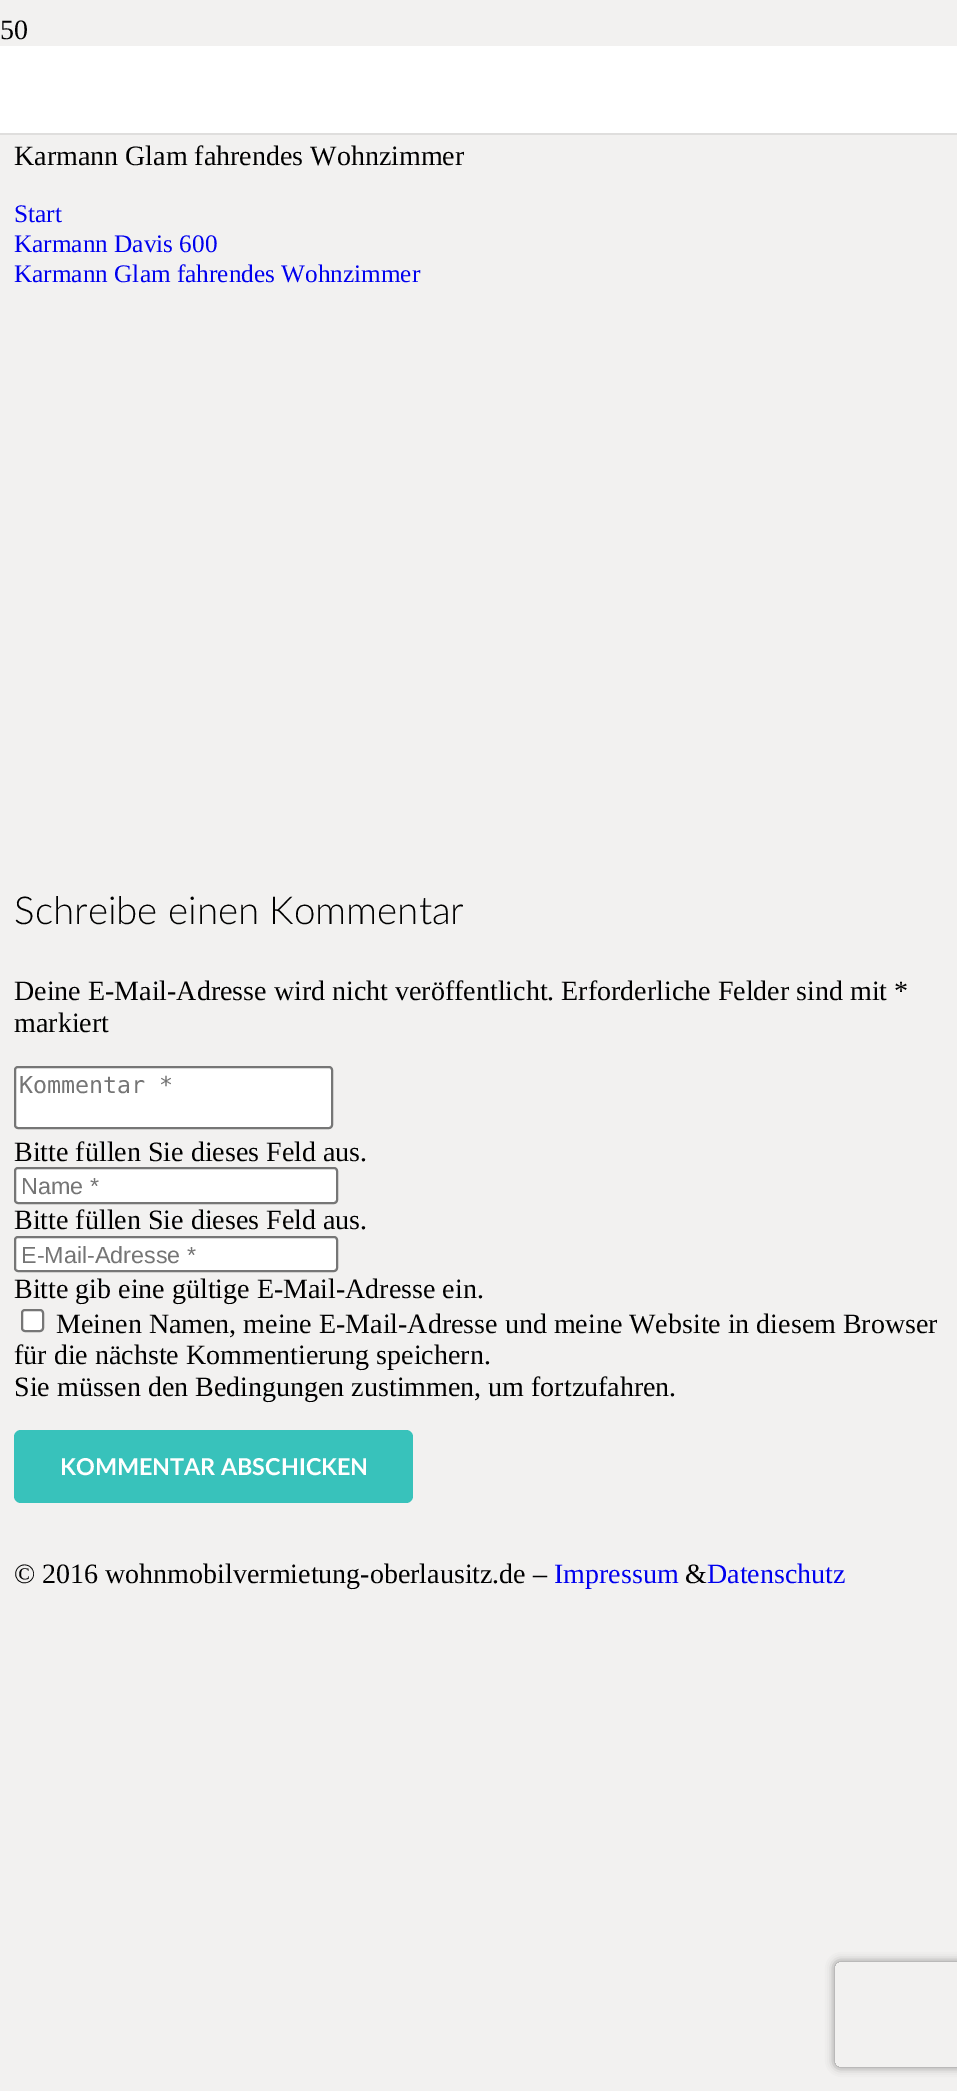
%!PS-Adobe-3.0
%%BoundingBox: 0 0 957 2091
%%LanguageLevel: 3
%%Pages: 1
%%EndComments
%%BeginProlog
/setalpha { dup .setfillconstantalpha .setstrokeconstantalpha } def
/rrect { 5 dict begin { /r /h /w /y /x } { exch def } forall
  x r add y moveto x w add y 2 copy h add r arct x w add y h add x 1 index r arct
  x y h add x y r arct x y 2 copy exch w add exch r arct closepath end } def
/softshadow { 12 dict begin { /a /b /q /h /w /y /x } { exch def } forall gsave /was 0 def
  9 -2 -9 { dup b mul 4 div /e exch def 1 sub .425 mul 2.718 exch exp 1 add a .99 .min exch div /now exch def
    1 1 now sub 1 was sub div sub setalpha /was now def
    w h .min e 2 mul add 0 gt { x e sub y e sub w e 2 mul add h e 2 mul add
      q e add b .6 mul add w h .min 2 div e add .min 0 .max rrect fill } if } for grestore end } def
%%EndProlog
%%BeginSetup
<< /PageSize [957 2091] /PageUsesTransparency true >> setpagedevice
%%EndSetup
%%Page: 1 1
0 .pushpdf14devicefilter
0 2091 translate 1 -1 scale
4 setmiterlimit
0.949 0.945 0.941 setrgbcolor
0 0 957 2091 rectfill
0.875 0.871 0.867 setrgbcolor
0 133 957 2 rectfill
1 setgray
0 46 957 87 rectfill
15 1067 317 61 3 rrect gsave fill grestore
0.463 setgray
2 setlinewidth
stroke
1 setgray
15 1168 322 35 3 rrect gsave fill grestore
0.463 setgray
stroke
1 setgray
15 1237 322 34 3 rrect gsave fill grestore
0.463 setgray
stroke
1 setgray
22 1310 21 21 3 rrect gsave fill grestore
0.463 setgray
stroke
0.22 0.761 0.733 setrgbcolor
14 1430 399 73 7 rrect fill
gsave
newpath 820 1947 moveto 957 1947 lineto 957 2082 lineto 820 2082 lineto closepath 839 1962 moveto 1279 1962 lineto 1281 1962 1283 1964 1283 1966 curveto 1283 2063 lineto 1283 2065 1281 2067 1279 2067 curveto 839 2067 lineto 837 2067 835 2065 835 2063 curveto 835 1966 lineto 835 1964 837 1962 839 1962 curveto closepath eoclip newpath
0.502 setgray
835 1962 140 105 4 4.5 1 softshadow
grestore
/LiberationSerif-Regular [28 0 0 -28 0 0] selectfont
0 setgray
0 39 moveto (50) show
14 165 moveto (Karmann Glam fahrendes Wohnzimmer) show
/LiberationSerif-Regular [25.25 0 0 -25.25 0 0] selectfont
0 0 0.933 setrgbcolor
14 222 moveto (Start) show
14 252 moveto (Karmann Davis 600) show
14 282 moveto (Karmann Glam fahrendes Wohnzimmer) show
/Lato-Light [38.5 0 0 -38.5 0 0] selectfont
0 setgray
14 924 moveto (Schreibe einen Kommentar) show
/LiberationSerif-Regular [28 0 0 -28 0 0] selectfont
14 1000 moveto (Deine E-Mail-Adresse wird nicht veröffentlicht. Erforderliche Felder sind mit *) show
14 1032 moveto (markiert) show
/DejaVuSansMono-Regular [23.3 0 0 -23.3 0 0] selectfont
0.459 setgray
19 1093 moveto (Kommentar *) show
/LiberationSerif-Regular [28 0 0 -28 0 0] selectfont
0 setgray
14 1161 moveto (Bitte füllen Sie dieses Feld aus.) show
/LiberationSans-Regular [23.3 0 0 -23.3 0 0] selectfont
0.459 setgray
21 1194 moveto (Name *) show
/LiberationSerif-Regular [28 0 0 -28 0 0] selectfont
0 setgray
14 1229 moveto (Bitte füllen Sie dieses Feld aus.) show
/LiberationSans-Regular [23.3 0 0 -23.3 0 0] selectfont
0.459 setgray
21 1263 moveto (E-Mail-Adresse *) show
/LiberationSerif-Regular [28 0 0 -28 0 0] selectfont
0 setgray
14 1298 moveto (Bitte gib eine gültige E-Mail-Adresse ein.) show
56 1333 moveto (Meinen Namen, meine E-Mail-Adresse und meine Website in diesem Browser) show
14 1364 moveto (für die nächste Kommentierung speichern.) show
14 1396 moveto (Sie müssen den Bedingungen zustimmen, um fortzufahren.) show
/Lato-Bold [23.3 0 0 -23.3 0 0] selectfont
1 setgray
60 1475 moveto (KOMMENTAR ABSCHICKEN) show
/LiberationSerif-Regular [28 0 0 -28 0 0] selectfont
0 setgray
14 1583 moveto (© 2016 wohnmobilvermietung-oberlausitz.de –) show
0 0 0.933 setrgbcolor
554 1583 moveto (Impressum) show
0 setgray
685 1583 moveto (&) show
0 0 0.933 setrgbcolor
707 1583 moveto (Datenschutz) show
.poppdf14devicefilter showpage
%%EOF
